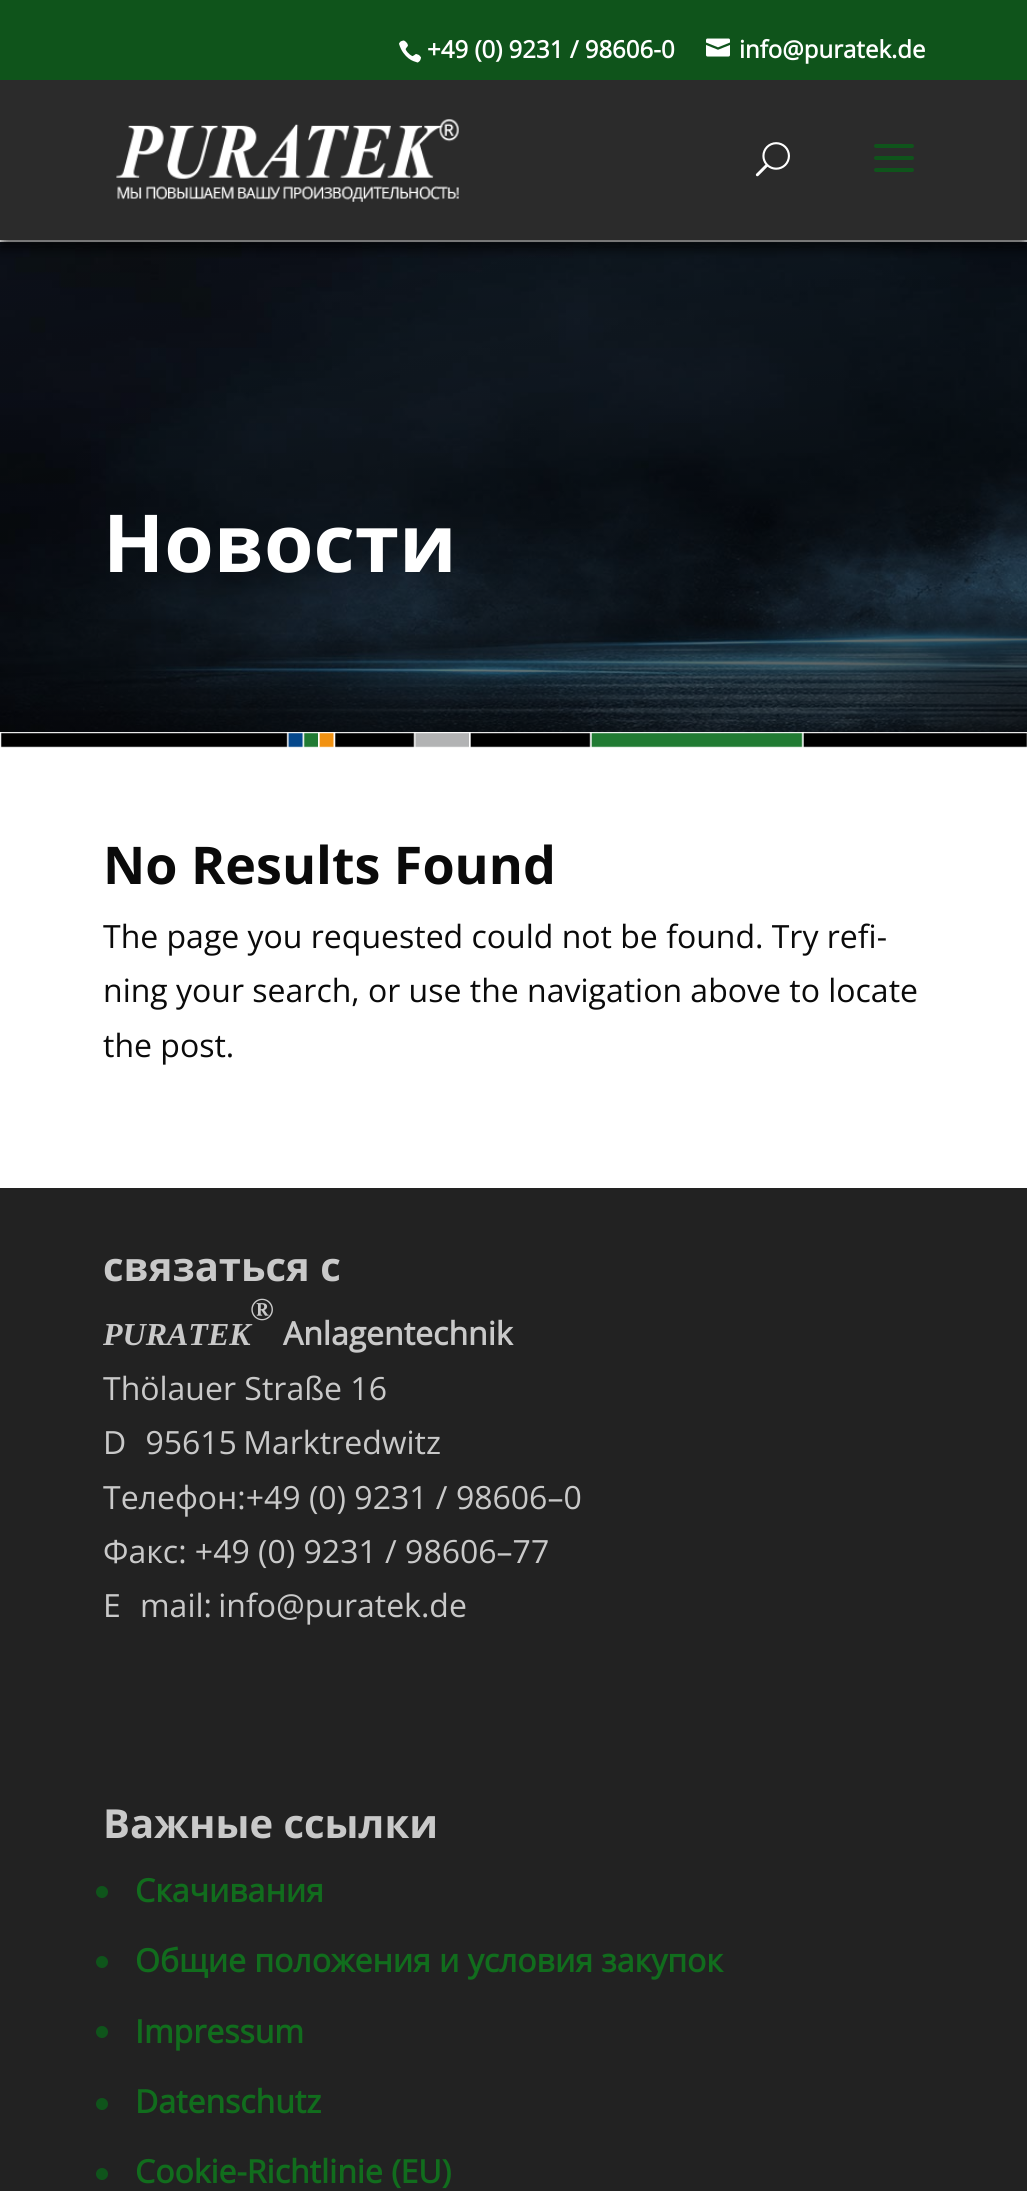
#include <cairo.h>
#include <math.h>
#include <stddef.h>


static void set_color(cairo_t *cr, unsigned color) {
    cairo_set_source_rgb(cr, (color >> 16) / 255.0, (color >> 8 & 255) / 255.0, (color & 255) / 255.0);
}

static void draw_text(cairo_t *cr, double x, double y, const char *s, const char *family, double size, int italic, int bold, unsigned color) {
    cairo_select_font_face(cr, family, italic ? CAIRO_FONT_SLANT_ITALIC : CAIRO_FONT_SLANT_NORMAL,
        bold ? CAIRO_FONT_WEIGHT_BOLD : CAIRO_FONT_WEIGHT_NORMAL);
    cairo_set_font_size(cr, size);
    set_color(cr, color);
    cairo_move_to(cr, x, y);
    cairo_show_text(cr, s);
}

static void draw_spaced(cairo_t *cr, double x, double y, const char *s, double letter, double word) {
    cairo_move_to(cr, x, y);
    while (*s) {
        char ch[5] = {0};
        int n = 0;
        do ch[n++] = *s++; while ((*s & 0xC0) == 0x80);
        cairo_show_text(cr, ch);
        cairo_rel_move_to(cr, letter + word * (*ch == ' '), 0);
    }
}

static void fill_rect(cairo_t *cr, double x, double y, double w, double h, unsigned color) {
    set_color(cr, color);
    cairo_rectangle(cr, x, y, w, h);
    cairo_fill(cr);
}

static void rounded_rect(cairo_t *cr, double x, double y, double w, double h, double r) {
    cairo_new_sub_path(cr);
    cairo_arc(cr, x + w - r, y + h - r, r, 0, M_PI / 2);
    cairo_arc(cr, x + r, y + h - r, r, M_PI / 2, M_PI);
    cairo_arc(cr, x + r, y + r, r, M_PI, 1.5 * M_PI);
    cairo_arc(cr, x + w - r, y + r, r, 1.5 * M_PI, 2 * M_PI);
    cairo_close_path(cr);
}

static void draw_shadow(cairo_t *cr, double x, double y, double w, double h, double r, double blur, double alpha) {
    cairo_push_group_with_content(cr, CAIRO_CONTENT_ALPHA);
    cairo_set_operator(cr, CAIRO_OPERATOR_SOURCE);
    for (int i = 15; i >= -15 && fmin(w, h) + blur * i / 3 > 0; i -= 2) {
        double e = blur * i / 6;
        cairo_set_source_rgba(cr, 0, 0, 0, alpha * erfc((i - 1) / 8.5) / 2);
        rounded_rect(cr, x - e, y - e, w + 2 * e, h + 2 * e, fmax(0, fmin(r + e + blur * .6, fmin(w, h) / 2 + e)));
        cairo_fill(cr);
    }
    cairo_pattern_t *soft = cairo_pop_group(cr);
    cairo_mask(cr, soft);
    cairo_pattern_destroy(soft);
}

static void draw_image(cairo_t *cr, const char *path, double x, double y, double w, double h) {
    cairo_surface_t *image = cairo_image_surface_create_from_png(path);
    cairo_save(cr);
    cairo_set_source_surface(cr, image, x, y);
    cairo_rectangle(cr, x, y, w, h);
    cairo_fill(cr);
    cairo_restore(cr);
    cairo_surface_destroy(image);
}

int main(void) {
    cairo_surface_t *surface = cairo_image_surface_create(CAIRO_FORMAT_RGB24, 1027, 2191);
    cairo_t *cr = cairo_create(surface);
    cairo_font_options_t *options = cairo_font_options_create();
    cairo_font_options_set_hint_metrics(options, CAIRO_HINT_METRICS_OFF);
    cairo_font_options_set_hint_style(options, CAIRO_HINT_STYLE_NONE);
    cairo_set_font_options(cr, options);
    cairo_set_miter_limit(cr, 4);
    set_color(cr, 0xFFFFFF);
    cairo_paint(cr);
    draw_image(cr, "assets/img6.png", 0, 242, 1027, 490);
    set_color(cr, 0x000000);
    draw_shadow(cr, 0, 90, 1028, 160, 0, 5, 0.55);
    fill_rect(cr, 0, 0, 1027, 80, 0x0F541B);
    draw_image(cr, "assets/img1.png", 399, 40, 22, 23);
    draw_text(cr, 427, 58, "+49 (0) 9231 / 98606-0", "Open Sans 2", 24, 0, 1, 0xFFFFFF);
    draw_image(cr, "assets/img2.png", 706, 38, 24, 19);
    draw_text(cr, 739, 58, "info@puratek.de", "Open Sans 2", 24, 0, 1, 0xFFFFFF);
    fill_rect(cr, 0, 80, 1027, 160, 0x2B2B2B);
    draw_image(cr, "assets/img3.png", 116, 119, 343, 83);
    draw_image(cr, "assets/img4.png", 755, 142, 35, 35);
    draw_image(cr, "assets/img5.png", 874, 144, 40, 28);
    draw_text(cr, 103, 572, "Новости", "Open Sans", 80, 0, 1, 0xFFFFFF);
    draw_image(cr, "assets/img7.png", 0, 732, 1027, 16);
    draw_text(cr, 103, 884, "No Results Found", "Open Sans", 52, 0, 1, 0x0A0A0A);
    draw_text(cr, 103, 948, "The page you requested could not be found. Try refi-", "Open Sans", 32, 0, 0, 0x0A0A0A);
    draw_text(cr, 103, 1002, "ning your search, or use the navigation above to locate", "Open Sans", 32, 0, 0, 0x0A0A0A);
    draw_text(cr, 103, 1057, "the post.", "Open Sans", 32, 0, 0, 0x0A0A0A);
    fill_rect(cr, 0, 1188, 1027, 1003, 0x222222);
    draw_text(cr, 103, 1281, "связаться с", "Open Sans", 40, 0, 1, 0xC9C9C9);
    draw_text(cr, 250, 1320, "®", "Liberation Serif", 32, 1, 1, 0xC9C9C9);
    draw_text(cr, 103, 1345, "PURATEK", "Liberation Serif", 32, 1, 1, 0xC9C9C9);
    draw_text(cr, 283, 1345, "Anlagentechnik", "Open Sans 2", 32, 0, 1, 0xC9C9C9);
    draw_text(cr, 103, 1400, "Thölauer Straße 16", "Open Sans", 32, 0, 0, 0xC9C9C9);
    draw_spaced(cr, 103, 1454, "D‑95615 Marktredwitz", 0, -2);
    draw_text(cr, 103, 1509, "Телефон:+49 (0) 9231 / 98606–0", "Open Sans", 32, 0, 0, 0xC9C9C9);
    draw_text(cr, 103, 1563, "Факс: +49 (0) 9231 / 98606–77", "Open Sans", 32, 0, 0, 0xC9C9C9);
    draw_spaced(cr, 103, 1617, "E‑mail: info@puratek.de", 0, -2);
    draw_text(cr, 103, 1838, "Важные ссылки", "Open Sans", 40, 0, 1, 0xC9C9C9);
    set_color(cr, 0x0F541B);
    cairo_new_path(cr);
    cairo_arc(cr, 102, 1892, 6, 0, 2 * M_PI);
    cairo_fill(cr);
    draw_text(cr, 135, 1902, "Скачивания", "Open Sans 2", 32, 0, 1, 0x116D1D);
    set_color(cr, 0x0F541B);
    cairo_new_path(cr);
    cairo_arc(cr, 102, 1962, 6, 0, 2 * M_PI);
    cairo_fill(cr);
    draw_text(cr, 135, 1972, "Общие положения и условия закупок", "Open Sans 2", 32, 0, 1, 0x116D1D);
    set_color(cr, 0x0F541B);
    cairo_new_path(cr);
    cairo_arc(cr, 102, 2032, 6, 0, 2 * M_PI);
    cairo_fill(cr);
    draw_text(cr, 135, 2043, "Impressum", "Open Sans 2", 32, 0, 1, 0x116D1D);
    set_color(cr, 0x0F541B);
    cairo_new_path(cr);
    cairo_arc(cr, 102, 2104, 6, 0, 2 * M_PI);
    cairo_fill(cr);
    draw_text(cr, 135, 2113, "Datenschutz", "Open Sans 2", 32, 0, 1, 0x116D1D);
    set_color(cr, 0x0F541B);
    cairo_new_path(cr);
    cairo_arc(cr, 102, 2174, 6, 0, 2 * M_PI);
    cairo_fill(cr);
    draw_text(cr, 135, 2183, "Cookie-Richtlinie (EU)", "Open Sans 2", 32, 0, 1, 0x116D1D);
    cairo_surface_write_to_png(surface, "output.png");
    cairo_font_options_destroy(options);
    cairo_destroy(cr);
    cairo_surface_destroy(surface);
    return 0;
}
